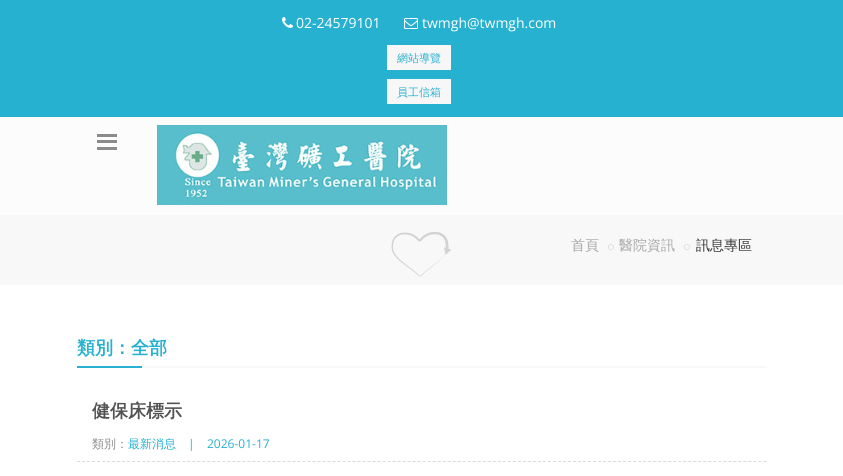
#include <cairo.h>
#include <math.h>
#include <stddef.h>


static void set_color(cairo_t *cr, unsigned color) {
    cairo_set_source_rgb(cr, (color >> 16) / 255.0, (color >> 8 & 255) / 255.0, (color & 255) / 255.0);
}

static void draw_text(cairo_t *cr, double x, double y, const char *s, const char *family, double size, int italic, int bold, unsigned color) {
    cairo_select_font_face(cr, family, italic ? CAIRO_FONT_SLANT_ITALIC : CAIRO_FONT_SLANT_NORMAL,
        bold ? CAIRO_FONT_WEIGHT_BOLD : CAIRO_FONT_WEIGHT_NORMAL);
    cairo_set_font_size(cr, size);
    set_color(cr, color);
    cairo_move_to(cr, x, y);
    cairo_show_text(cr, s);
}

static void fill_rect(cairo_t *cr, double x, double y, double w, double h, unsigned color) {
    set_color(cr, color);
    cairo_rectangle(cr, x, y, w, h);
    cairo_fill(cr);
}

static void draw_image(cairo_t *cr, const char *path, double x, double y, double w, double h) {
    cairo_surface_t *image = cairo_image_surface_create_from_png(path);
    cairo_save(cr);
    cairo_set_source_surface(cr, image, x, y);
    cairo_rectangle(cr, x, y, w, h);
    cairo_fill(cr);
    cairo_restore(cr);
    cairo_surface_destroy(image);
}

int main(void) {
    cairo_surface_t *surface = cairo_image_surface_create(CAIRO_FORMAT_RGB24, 843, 476);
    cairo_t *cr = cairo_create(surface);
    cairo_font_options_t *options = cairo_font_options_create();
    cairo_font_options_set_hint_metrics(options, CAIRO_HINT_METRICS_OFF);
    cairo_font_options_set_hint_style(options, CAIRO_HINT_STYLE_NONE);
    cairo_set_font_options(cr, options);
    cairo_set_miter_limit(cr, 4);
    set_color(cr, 0x26B1D0);
    cairo_paint(cr);
    draw_image(cr, "assets/img1.png", 282, 17, 11, 11);
    draw_text(cr, 296, 28, "02-24579101", "Open Sans", 14, 0, 0, 0xFFFFFF);
    draw_image(cr, "assets/img2.png", 404, 18, 14, 11);
    draw_text(cr, 422, 28, "twmgh@twmgh.com", "Open Sans", 14, 0, 0, 0xFFFFFF);
    fill_rect(cr, 387, 45, 64, 25, 0xF7F7F7);
    draw_text(cr, 397, 62, "網站導覽", "WenQuanYi Zen Hei Medium", 11, 0, 0, 0x26B1D0);
    fill_rect(cr, 387, 79, 64, 25, 0xF7F7F7);
    draw_text(cr, 397, 96, "員工信箱", "WenQuanYi Zen Hei Medium", 11, 0, 0, 0x26B1D0);
    fill_rect(cr, 0, 117, 843, 98, 0xFCFCFC);
    fill_rect(cr, 97, 134, 20, 3, 0x8B8B8B);
    fill_rect(cr, 97, 140, 20, 3, 0x8B8B8B);
    fill_rect(cr, 97, 147, 20, 3, 0x8B8B8B);
    draw_image(cr, "assets/img3.png", 157, 125, 290, 80);
    fill_rect(cr, 0, 215, 843, 70, 0xF8F8F8);
    draw_image(cr, "assets/img4.png", 391, 231, 60, 46);
    draw_text(cr, 571, 250, "首頁", "WenQuanYi Zen Hei Medium", 14, 0, 0, 0xA8A8A8);
    draw_image(cr, "assets/img5.png", 608, 244, 6, 6);
    draw_text(cr, 619, 250, "醫院資訊", "WenQuanYi Zen Hei Medium", 14, 0, 0, 0xA8A8A8);
    draw_image(cr, "assets/img5.png", 684, 244, 6, 6);
    draw_text(cr, 696, 250, "訊息專區", "WenQuanYi Zen Hei Medium", 14, 0, 0, 0x353535);
    fill_rect(cr, 0, 285, 843, 191, 0xFFFFFF);
    fill_rect(cr, 142, 366, 625, 2, 0xF9F9F9);
    draw_text(cr, 77, 354, "類別：全部", "WenQuanYi Zen Hei", 18, 0, 1, 0x26B1D0);
    fill_rect(cr, 77, 366, 65, 2, 0x26B1D0);
    cairo_new_path(cr);
    cairo_move_to(cr, 77, 461.5);
    cairo_line_to(cr, 767, 461.5);
    set_color(cr, 0xDADADA);
    cairo_set_line_width(cr, 1);
    cairo_set_dash(cr, (double[]){3, 2.01}, 2, 0);
    cairo_stroke(cr);
    draw_text(cr, 92, 417, "健保床標示", "WenQuanYi Zen Hei", 18, 0, 1, 0x525252);
    draw_text(cr, 92, 448, "類別：", "WenQuanYi Zen Hei Medium", 12, 0, 0, 0x8B8B8B);
    draw_text(cr, 128, 448, "最新消息", "WenQuanYi Zen Hei Medium", 12, 0, 0, 0x26B1D0);
    draw_text(cr, 188, 448, "|", "Open Sans", 12, 0, 0, 0x26B1D0);
    draw_text(cr, 207, 448, "2026-01-17", "Open Sans", 12, 0, 0, 0x26B1D0);
    cairo_surface_write_to_png(surface, "output.png");
    cairo_font_options_destroy(options);
    cairo_destroy(cr);
    cairo_surface_destroy(surface);
    return 0;
}
